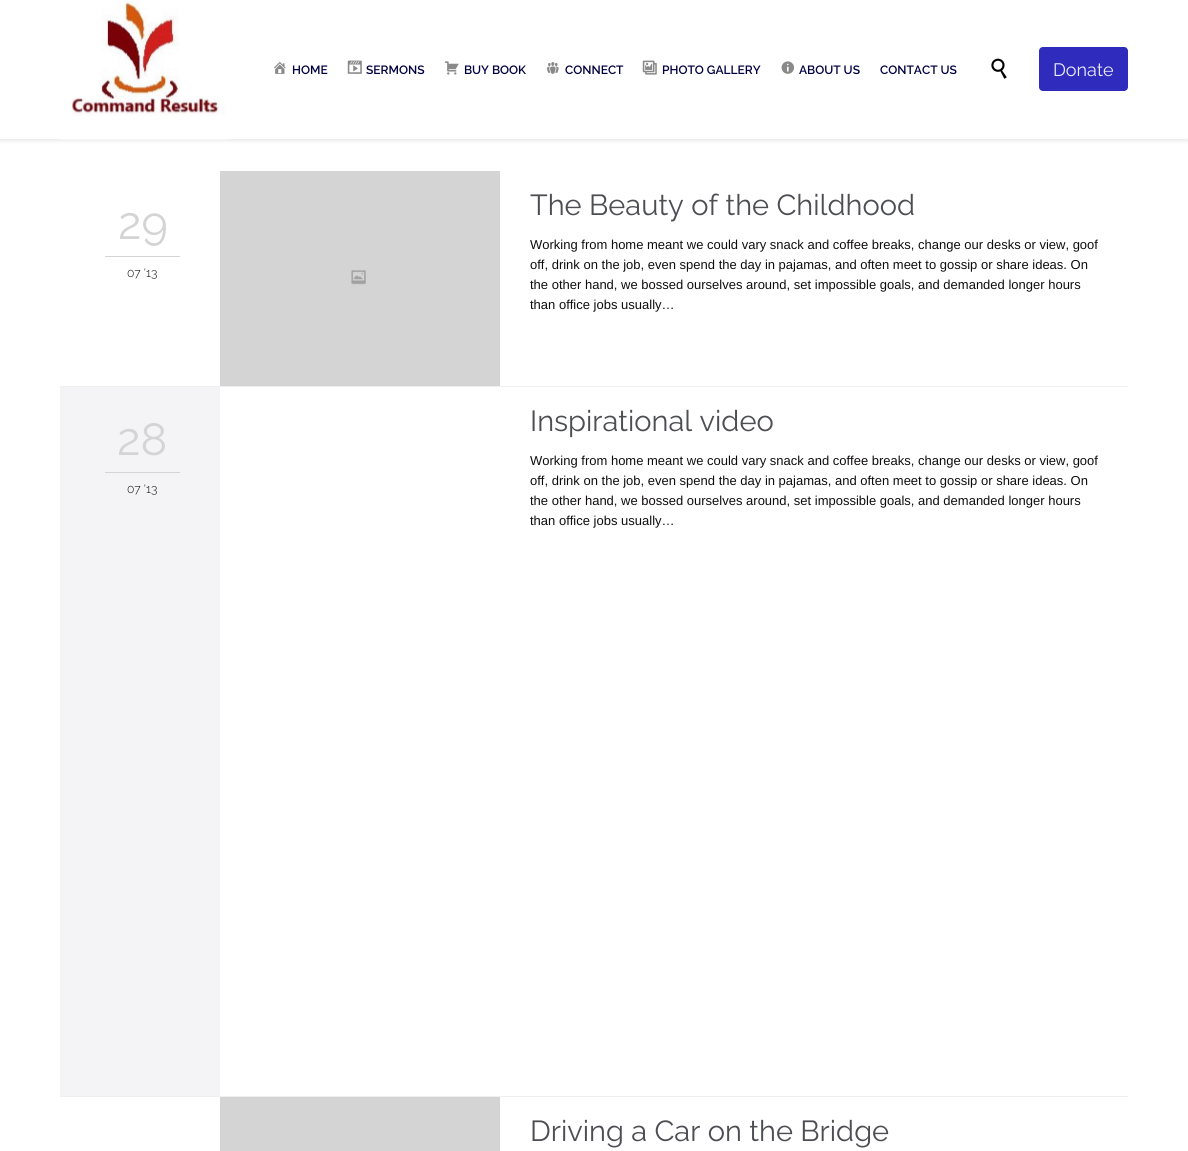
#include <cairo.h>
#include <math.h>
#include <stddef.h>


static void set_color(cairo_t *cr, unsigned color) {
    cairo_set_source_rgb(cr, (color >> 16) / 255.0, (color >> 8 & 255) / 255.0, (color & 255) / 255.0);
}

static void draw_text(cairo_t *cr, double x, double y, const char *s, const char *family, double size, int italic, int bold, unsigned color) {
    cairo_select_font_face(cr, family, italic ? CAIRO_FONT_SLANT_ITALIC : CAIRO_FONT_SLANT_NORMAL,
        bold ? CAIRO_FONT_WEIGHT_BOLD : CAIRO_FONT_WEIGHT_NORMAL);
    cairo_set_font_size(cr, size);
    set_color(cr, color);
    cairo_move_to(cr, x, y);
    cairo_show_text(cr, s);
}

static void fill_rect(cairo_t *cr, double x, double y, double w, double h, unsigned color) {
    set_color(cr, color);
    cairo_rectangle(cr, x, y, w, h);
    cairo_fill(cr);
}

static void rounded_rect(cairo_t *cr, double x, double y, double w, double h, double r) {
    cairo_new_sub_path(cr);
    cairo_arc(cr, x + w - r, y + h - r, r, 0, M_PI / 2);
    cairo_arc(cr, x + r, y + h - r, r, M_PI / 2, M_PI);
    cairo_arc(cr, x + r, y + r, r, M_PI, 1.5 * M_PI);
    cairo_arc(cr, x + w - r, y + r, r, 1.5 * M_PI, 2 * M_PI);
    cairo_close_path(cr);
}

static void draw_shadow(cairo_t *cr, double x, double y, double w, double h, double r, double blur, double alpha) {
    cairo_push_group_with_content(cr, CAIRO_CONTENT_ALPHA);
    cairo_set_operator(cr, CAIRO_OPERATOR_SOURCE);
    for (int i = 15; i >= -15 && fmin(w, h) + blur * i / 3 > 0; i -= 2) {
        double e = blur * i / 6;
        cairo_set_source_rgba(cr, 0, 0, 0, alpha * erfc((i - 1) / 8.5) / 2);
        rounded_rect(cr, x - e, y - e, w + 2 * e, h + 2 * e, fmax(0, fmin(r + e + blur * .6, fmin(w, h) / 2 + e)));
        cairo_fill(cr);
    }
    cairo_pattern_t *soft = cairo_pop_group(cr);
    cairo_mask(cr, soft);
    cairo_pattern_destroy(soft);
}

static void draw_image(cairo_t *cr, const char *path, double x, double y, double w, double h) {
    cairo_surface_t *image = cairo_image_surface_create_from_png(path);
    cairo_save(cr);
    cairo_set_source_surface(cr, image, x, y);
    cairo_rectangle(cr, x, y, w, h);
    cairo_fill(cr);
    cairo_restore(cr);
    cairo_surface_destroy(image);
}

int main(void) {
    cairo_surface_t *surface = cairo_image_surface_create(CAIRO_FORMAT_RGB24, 1188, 1151);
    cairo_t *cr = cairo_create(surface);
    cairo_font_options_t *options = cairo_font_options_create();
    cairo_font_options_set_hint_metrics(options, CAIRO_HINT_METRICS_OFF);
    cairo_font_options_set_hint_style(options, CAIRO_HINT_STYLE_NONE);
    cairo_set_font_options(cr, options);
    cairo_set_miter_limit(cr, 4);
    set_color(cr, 0xFFFFFF);
    cairo_paint(cr);
    set_color(cr, 0x000000);
    draw_shadow(cr, 0, -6, 1188, 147, 0, 2, 0.09);
    fill_rect(cr, 0, 0, 1188, 139, 0xFFFFFF);
    draw_image(cr, "assets/img1.png", 60, 0, 167, 140);
    draw_image(cr, "assets/img2.png", 274, 61, 12, 13);
    draw_text(cr, 292, 74, "HOME", "Raleway SemiBold", 12, 0, 0, 0x000040);
    draw_image(cr, "assets/img3.png", 347, 60, 15, 14);
    draw_text(cr, 366, 74, "SERMONS", "Raleway SemiBold", 12, 0, 0, 0x000040);
    draw_image(cr, "assets/img4.png", 444, 61, 15, 14);
    draw_text(cr, 464, 74, "BUY BOOK", "Raleway SemiBold", 12, 0, 0, 0x000040);
    draw_image(cr, "assets/img5.png", 547, 62, 12, 12);
    draw_text(cr, 565, 74, "CONNECT", "Raleway SemiBold", 12, 0, 0, 0x000040);
    draw_image(cr, "assets/img6.png", 642, 60, 15, 15);
    draw_text(cr, 662, 74, "PHOTO GALLERY", "Raleway SemiBold", 12, 0, 0, 0x000040);
    draw_image(cr, "assets/img7.png", 781, 61, 13, 13);
    draw_text(cr, 799, 74, "ABOUT US", "Raleway SemiBold", 12, 0, 0, 0x000040);
    draw_text(cr, 880, 74, "CONTACT US", "Raleway SemiBold", 12, 0, 0, 0x000040);
    draw_image(cr, "assets/img8.png", 991, 58, 16, 21);
    set_color(cr, 0x2E2BBD);
    rounded_rect(cr, 1039, 47, 89, 44, 4);
    cairo_fill(cr);
    draw_text(cr, 1053, 76, "Donate", "Raleway", 18, 0, 0, 0xEDECFB);
    fill_rect(cr, 60, 386, 1068, 1, 0xEFEFEF);
    fill_rect(cr, 105, 256, 75, 1, 0xD4D4D4);
    draw_text(cr, 118, 239, "29", "Raleway", 45, 0, 0, 0xD4D4D4);
    draw_text(cr, 127, 277, "07 '13", "Raleway Light", 12, 0, 0, 0x0F0D0D);
    draw_image(cr, "assets/img9.png", 220, 171, 280, 215);
    draw_text(cr, 530, 215, "The Beauty of the Childhood", "Raleway", 29, 0, 0, 0x4D4E53);
    draw_text(cr, 530, 249, "Working from home meant we could vary snack and coffee breaks, change our desks or view, goof", "Liberation Sans", 13, 0, 0, 0x0F0D0D);
    draw_text(cr, 530, 269, "off, drink on the job, even spend the day in pajamas, and often meet to gossip or share ideas. On", "Liberation Sans", 13, 0, 0, 0x0F0D0D);
    draw_text(cr, 530, 289, "the other hand, we bossed ourselves around, set impossible goals, and demanded longer hours", "Liberation Sans", 13, 0, 0, 0x0F0D0D);
    draw_text(cr, 530, 309, "than office jobs usually…", "Liberation Sans", 13, 0, 0, 0x0F0D0D);
    fill_rect(cr, 60, 1096, 1068, 1, 0xEFEFEF);
    fill_rect(cr, 60, 387, 160, 709, 0xF4F3F6);
    fill_rect(cr, 105, 472, 75, 1, 0xD4D4D4);
    draw_text(cr, 117, 455, "28", "Raleway", 45, 0, 0, 0xD4D4D4);
    draw_text(cr, 127, 493, "07 '13", "Raleway Light", 12, 0, 0, 0x0F0D0D);
    draw_text(cr, 530, 431, "Inspirational video", "Raleway", 29, 0, 0, 0x4D4E53);
    draw_text(cr, 530, 465, "Working from home meant we could vary snack and coffee breaks, change our desks or view, goof", "Liberation Sans", 13, 0, 0, 0x0F0D0D);
    draw_text(cr, 530, 485, "off, drink on the job, even spend the day in pajamas, and often meet to gossip or share ideas. On", "Liberation Sans", 13, 0, 0, 0x0F0D0D);
    draw_text(cr, 530, 505, "the other hand, we bossed ourselves around, set impossible goals, and demanded longer hours", "Liberation Sans", 13, 0, 0, 0x0F0D0D);
    draw_text(cr, 530, 525, "than office jobs usually…", "Liberation Sans", 13, 0, 0, 0x0F0D0D);
    fill_rect(cr, 220, 1097, 280, 54, 0xD4D4D4);
    draw_text(cr, 530, 1141, "Driving a Car on the Bridge", "Raleway", 29, 0, 0, 0x4D4E53);
    cairo_surface_write_to_png(surface, "output.png");
    cairo_font_options_destroy(options);
    cairo_destroy(cr);
    cairo_surface_destroy(surface);
    return 0;
}
